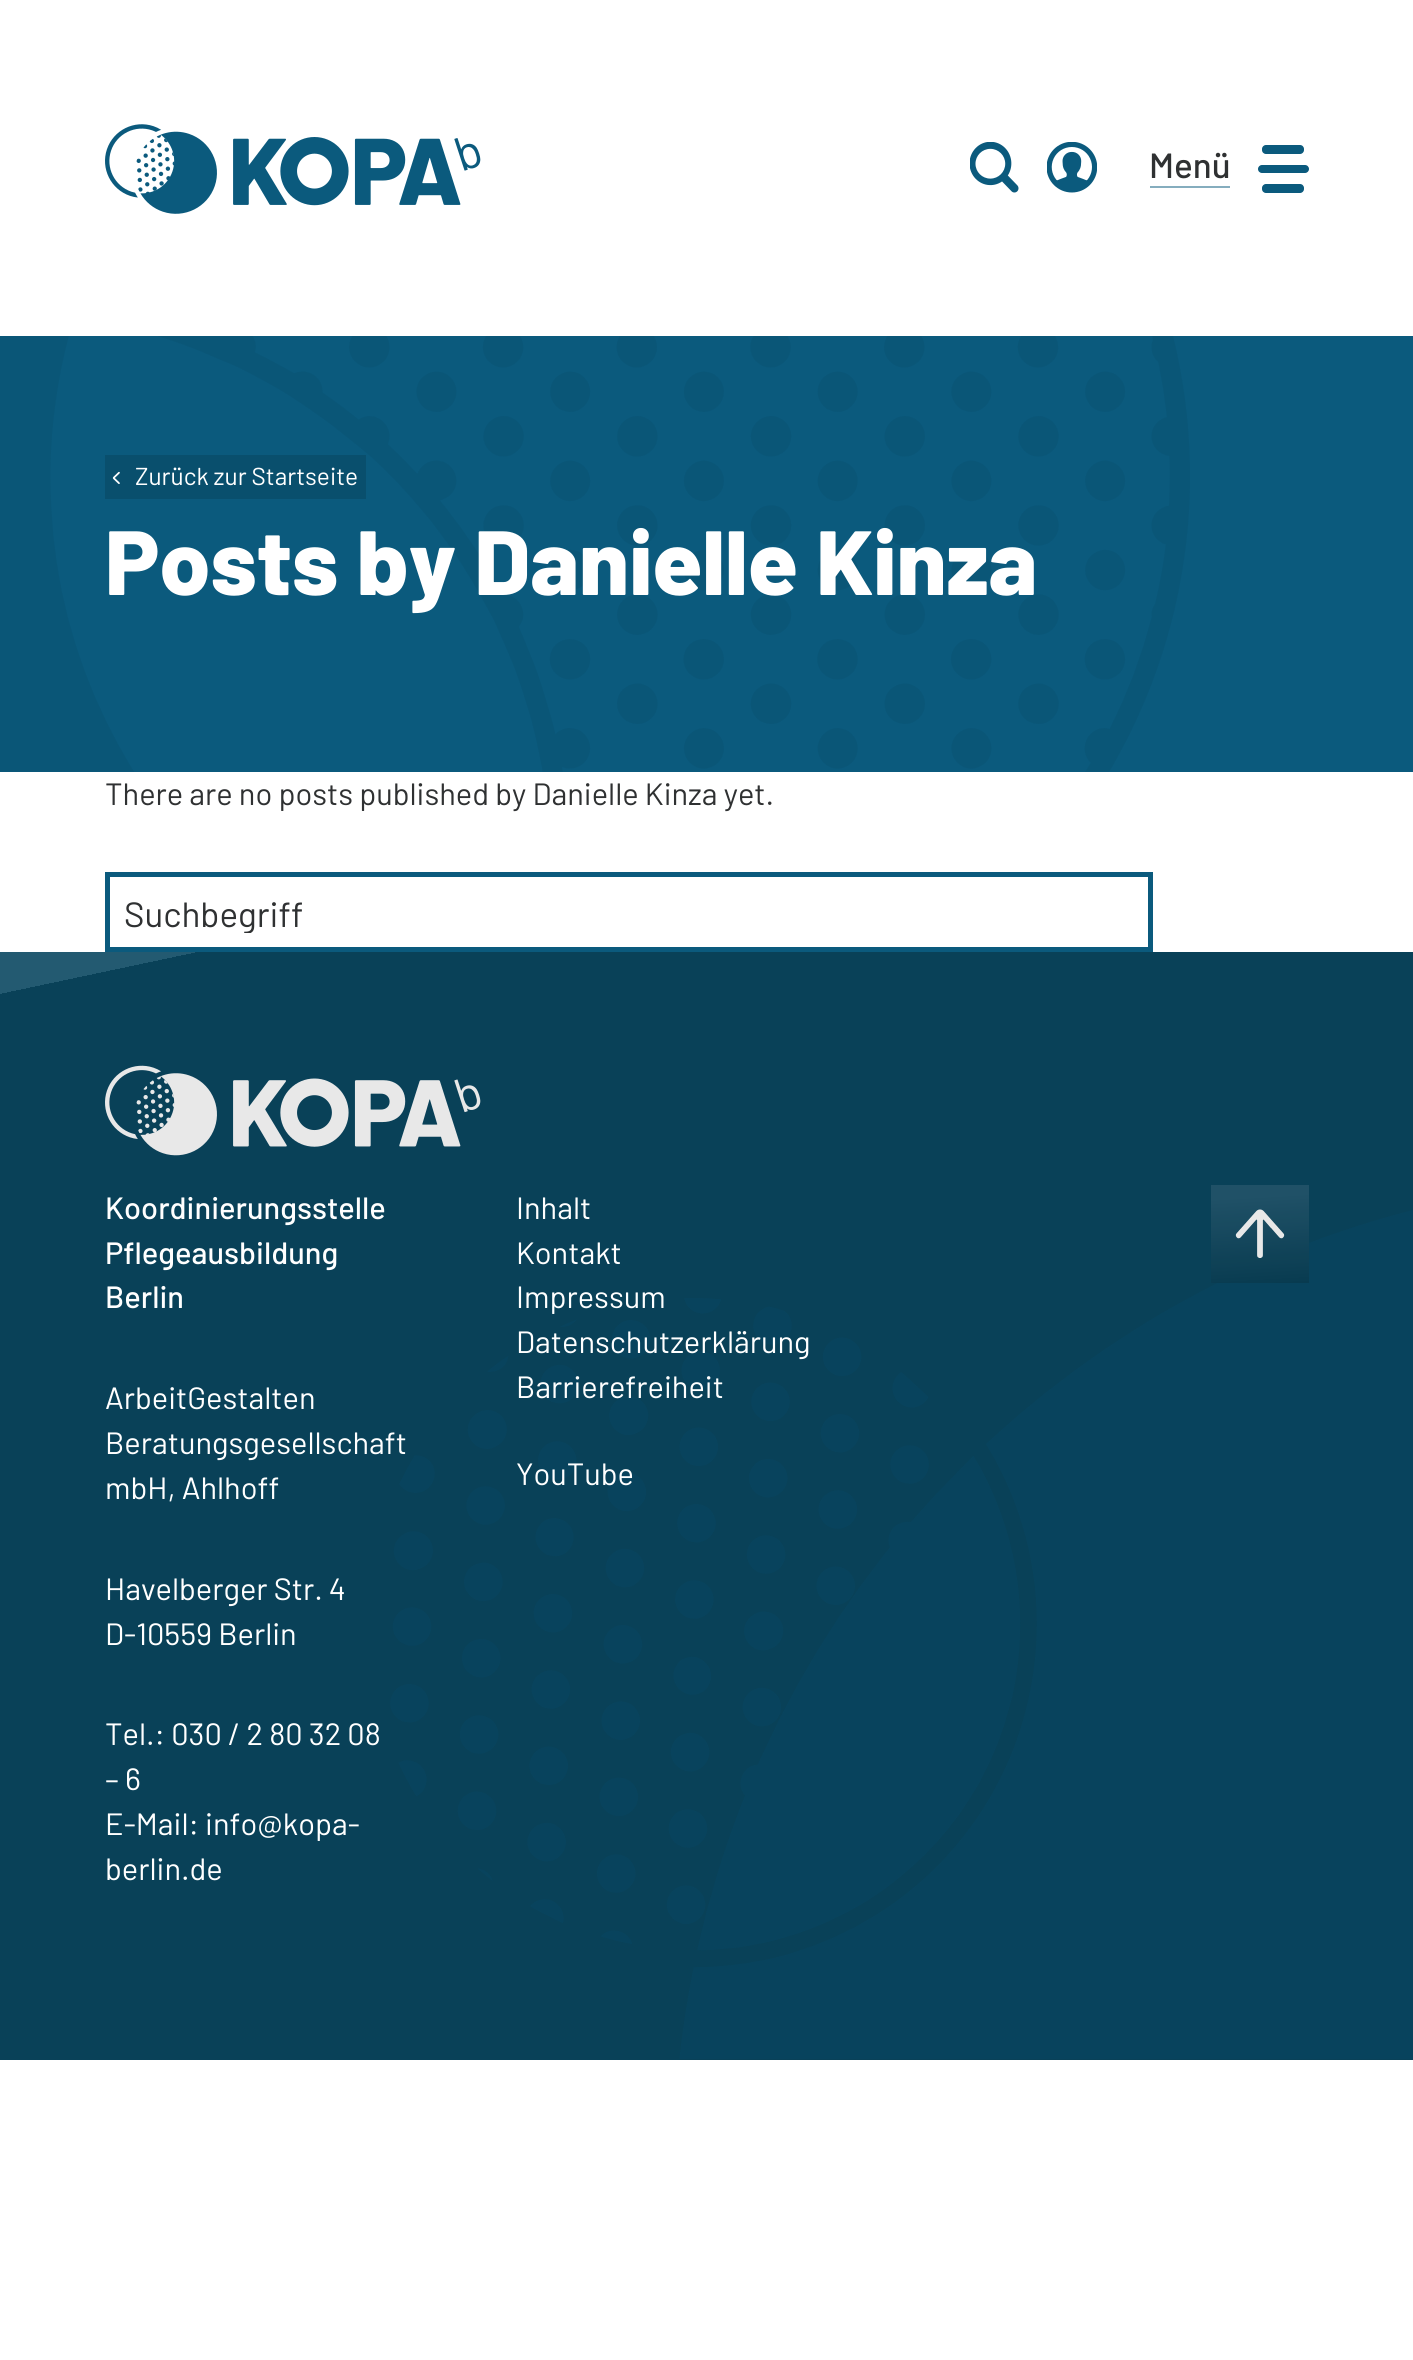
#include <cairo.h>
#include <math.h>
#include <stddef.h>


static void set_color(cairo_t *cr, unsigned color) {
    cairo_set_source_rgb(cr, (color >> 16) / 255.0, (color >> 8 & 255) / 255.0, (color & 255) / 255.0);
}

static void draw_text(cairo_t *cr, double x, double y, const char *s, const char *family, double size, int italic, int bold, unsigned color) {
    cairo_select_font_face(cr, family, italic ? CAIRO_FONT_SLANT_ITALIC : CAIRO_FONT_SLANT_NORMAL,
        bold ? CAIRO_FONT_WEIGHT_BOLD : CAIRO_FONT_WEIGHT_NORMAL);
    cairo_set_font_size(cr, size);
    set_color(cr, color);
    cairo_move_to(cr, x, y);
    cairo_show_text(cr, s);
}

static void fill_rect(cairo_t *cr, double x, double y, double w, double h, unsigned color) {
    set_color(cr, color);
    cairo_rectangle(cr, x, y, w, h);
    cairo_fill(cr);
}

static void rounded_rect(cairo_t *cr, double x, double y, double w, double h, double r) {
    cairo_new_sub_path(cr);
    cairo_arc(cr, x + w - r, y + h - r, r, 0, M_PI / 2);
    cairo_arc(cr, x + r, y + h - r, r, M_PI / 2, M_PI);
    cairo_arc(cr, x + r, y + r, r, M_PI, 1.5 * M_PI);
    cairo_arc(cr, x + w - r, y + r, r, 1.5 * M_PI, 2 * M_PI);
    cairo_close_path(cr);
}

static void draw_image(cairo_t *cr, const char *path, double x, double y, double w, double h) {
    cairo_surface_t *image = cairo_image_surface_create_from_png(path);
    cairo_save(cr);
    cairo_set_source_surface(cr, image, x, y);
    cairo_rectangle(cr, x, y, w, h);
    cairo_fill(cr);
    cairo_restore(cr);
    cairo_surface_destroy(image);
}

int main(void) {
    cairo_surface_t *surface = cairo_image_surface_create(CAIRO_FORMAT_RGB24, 1413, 2360);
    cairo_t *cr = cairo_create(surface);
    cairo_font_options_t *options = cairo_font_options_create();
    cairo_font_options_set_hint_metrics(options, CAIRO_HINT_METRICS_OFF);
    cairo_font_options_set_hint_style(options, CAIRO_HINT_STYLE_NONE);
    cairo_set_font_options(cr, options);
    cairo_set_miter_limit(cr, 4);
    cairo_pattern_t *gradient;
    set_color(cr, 0xFFFFFF);
    cairo_paint(cr);
    draw_image(cr, "assets/img1.png", 105, 124, 376, 90);
    draw_image(cr, "assets/img2.png", 970, 142, 49, 51);
    draw_image(cr, "assets/img3.png", 1047, 142, 50, 51);
    draw_text(cr, 1149, 178, "Menü", "Barlow Medium", 35, 0, 0, 0x2F3132);
    fill_rect(cr, 1150, 186, 80, 2, 0x85ADBE);
    set_color(cr, 0x0B5A7D);
    rounded_rect(cr, 1262, 184, 42, 9, 4);
    cairo_fill(cr);
    rounded_rect(cr, 1258, 165, 51, 8, 4);
    cairo_fill(cr);
    rounded_rect(cr, 1262, 145, 42, 9, 4);
    cairo_fill(cr);
    fill_rect(cr, 0, 336, 1413, 436, 0x0B5A7D);
    draw_image(cr, "assets/img4.png", 0, 336, 1190, 436);
    fill_rect(cr, 105, 455, 261, 44, 0x094F6D);
    draw_image(cr, "assets/img5.png", 112, 471, 8, 13);
    draw_text(cr, 135, 485, "Zurück zur Startseite", "Barlow", 24.5, 0, 0, 0xFFFFFF);
    draw_text(cr, 105, 595, "Posts by Danielle Kinza", "Barlow ExtraBold", 91, 0, 0, 0xFFFFFF);
    draw_text(cr, 105, 805, "There are no posts published by Danielle Kinza yet.", "Barlow", 30.8, 0, 0, 0x2F3132);
    cairo_rectangle(cr, 107.5, 874.5, 1043, 75);
    set_color(cr, 0x0B5A7D);
    cairo_set_line_width(cr, 5);
    cairo_stroke(cr);
    cairo_save(cr);
    cairo_rectangle(cr, 124, 891, 1010, 42);
    cairo_clip(cr);
    draw_text(cr, 124, 927, "Suchbegriff", "Barlow", 35, 0, 0, 0x2F3132);
    cairo_restore(cr);
    fill_rect(cr, 0, 952, 1413, 1108, 0x0A4761);
    draw_image(cr, "assets/img6.png", 105, 1065, 376, 91);
    draw_image(cr, "assets/img8.png", 390, 1210, 1023, 849);
    gradient = cairo_pattern_create_linear(1263, 1285, 1257, 1182);
    cairo_pattern_add_color_stop_rgba(gradient, 0, 0.035, 0.255, 0.345, 1);
    cairo_pattern_add_color_stop_rgba(gradient, 0.86, 0.137, 0.349, 0.443, 1);
    cairo_set_source(cr, gradient);
    cairo_pattern_destroy(gradient);
    cairo_rectangle(cr, 1211, 1185, 98, 98);
    cairo_fill(cr);
    draw_image(cr, "assets/img7.png", 1235, 1209, 50, 49);
    gradient = cairo_pattern_create_linear(850, 2180, 564, 832);
    cairo_pattern_add_color_stop_rgba(gradient, 0.97, 0, 0, 0, 0.09);
    cairo_pattern_add_color_stop_rgba(gradient, 0.97, 1, 1, 1, 0.1);
    cairo_set_source(cr, gradient);
    cairo_pattern_destroy(gradient);
    cairo_rectangle(cr, 0, 952, 1413, 1108);
    cairo_fill(cr);
    draw_text(cr, 105, 1219, "Koordinierungsstelle", "Barlow Medium", 30.8, 0, 0, 0xFFFFFF);
    draw_text(cr, 105, 1264, "Pflegeausbildung", "Barlow Medium", 30.8, 0, 0, 0xFFFFFF);
    draw_text(cr, 105, 1308, "Berlin", "Barlow Medium", 30.8, 0, 0, 0xFFFFFF);
    draw_text(cr, 105, 1409, "ArbeitGestalten", "Barlow", 30.8, 0, 0, 0xFFFFFF);
    draw_text(cr, 105, 1454, "Beratungsgesellschaft", "Barlow", 30.8, 0, 0, 0xFFFFFF);
    draw_text(cr, 105, 1499, "mbH, Ahlhoff", "Barlow", 30.8, 0, 0, 0xFFFFFF);
    draw_text(cr, 105, 1600, "Havelberger Str. 4", "Barlow", 30.8, 0, 0, 0xFFFFFF);
    draw_text(cr, 105, 1645, "D-10559 Berlin", "Barlow", 30.8, 0, 0, 0xFFFFFF);
    draw_text(cr, 105, 1745, "Tel.: 030 / 2 80 32 08", "Barlow", 30.8, 0, 0, 0xFFFFFF);
    draw_text(cr, 105, 1790, "– 6", "Barlow", 30.8, 0, 0, 0xFFFFFF);
    draw_text(cr, 105, 1835, "E-Mail: info@kopa-", "Barlow", 30.8, 0, 0, 0xFFFFFF);
    draw_text(cr, 105, 1880, "berlin.de", "Barlow", 30.8, 0, 0, 0xFFFFFF);
    draw_text(cr, 516, 1219, "Inhalt", "Barlow", 30.8, 0, 0, 0xFFFFFF);
    draw_text(cr, 516, 1264, "Kontakt", "Barlow", 30.8, 0, 0, 0xFFFFFF);
    draw_text(cr, 516, 1308, "Impressum", "Barlow", 30.8, 0, 0, 0xFFFFFF);
    draw_text(cr, 516, 1353, "Datenschutzerklärung", "Barlow", 30.8, 0, 0, 0xFFFFFF);
    draw_text(cr, 516, 1398, "Barrierefreiheit", "Barlow", 30.8, 0, 0, 0xFFFFFF);
    draw_text(cr, 516, 1485, "YouTube", "Barlow", 30.8, 0, 0, 0xFFFFFF);
    cairo_surface_write_to_png(surface, "output.png");
    cairo_font_options_destroy(options);
    cairo_destroy(cr);
    cairo_surface_destroy(surface);
    return 0;
}
